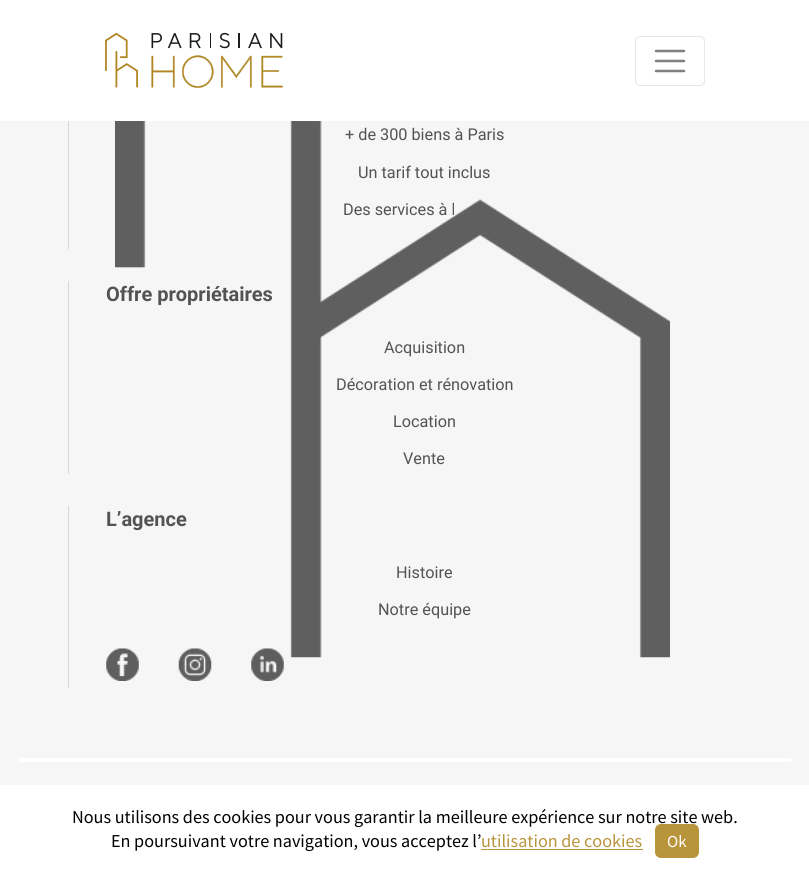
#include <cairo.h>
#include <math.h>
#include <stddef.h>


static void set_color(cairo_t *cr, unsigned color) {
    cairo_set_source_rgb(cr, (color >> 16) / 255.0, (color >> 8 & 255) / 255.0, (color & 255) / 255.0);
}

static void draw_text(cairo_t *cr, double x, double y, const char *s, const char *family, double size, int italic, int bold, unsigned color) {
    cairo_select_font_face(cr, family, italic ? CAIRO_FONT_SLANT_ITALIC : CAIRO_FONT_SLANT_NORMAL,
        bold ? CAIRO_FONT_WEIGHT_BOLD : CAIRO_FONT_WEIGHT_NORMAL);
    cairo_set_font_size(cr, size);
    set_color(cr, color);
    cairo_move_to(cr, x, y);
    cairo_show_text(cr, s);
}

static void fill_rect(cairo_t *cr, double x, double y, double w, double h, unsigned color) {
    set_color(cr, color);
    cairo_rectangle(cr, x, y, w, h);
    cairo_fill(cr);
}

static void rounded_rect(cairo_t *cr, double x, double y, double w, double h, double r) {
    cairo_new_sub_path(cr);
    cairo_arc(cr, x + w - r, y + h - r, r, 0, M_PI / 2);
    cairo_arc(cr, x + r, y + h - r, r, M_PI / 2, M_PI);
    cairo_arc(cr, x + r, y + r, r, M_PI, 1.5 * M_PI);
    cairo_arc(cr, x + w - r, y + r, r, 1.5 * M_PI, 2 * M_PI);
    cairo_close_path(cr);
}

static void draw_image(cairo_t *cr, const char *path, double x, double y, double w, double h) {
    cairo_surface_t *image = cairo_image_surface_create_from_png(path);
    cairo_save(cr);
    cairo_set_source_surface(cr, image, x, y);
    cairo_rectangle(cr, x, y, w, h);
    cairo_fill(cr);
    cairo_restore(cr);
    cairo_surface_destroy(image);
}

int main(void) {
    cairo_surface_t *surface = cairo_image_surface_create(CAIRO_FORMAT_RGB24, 809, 871);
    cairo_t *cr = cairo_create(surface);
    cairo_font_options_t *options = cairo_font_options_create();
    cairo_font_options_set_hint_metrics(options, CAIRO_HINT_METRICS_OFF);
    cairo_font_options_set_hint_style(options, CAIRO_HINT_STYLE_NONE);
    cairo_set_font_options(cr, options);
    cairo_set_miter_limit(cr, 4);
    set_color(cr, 0xF6F6F6);
    cairo_paint(cr);
    fill_rect(cr, 0, 0, 809, 121, 0xFFFFFF);
    draw_image(cr, "assets/img1.png", 105, 32, 178, 56);
    rounded_rect(cr, 635.5, 36.5, 69, 49, 4.5);
    set_color(cr, 0xE6E6E6);
    cairo_set_line_width(cr, 1);
    cairo_stroke(cr);
    cairo_new_path(cr);
    cairo_move_to(cr, 656, 51);
    cairo_line_to(cr, 684, 51);
    cairo_move_to(cr, 656, 61);
    cairo_line_to(cr, 684, 61);
    cairo_move_to(cr, 656, 71);
    cairo_line_to(cr, 684, 71);
    set_color(cr, 0x808080);
    cairo_set_line_width(cr, 2.5);
    cairo_set_line_cap(cr, CAIRO_LINE_CAP_ROUND);
    cairo_stroke(cr);
    draw_image(cr, "assets/img2.png", 115, 121, 555, 537);
    fill_rect(cr, 68, 121, 1, 128, 0xD7D7D7);
    draw_text(cr, 345, 140, "+ de 300 biens à Paris", "Roboto", 16.25, 0, 0, 0x535353);
    draw_text(cr, 358, 178, "Un tarif tout inclus", "Roboto", 16.25, 0, 0, 0x535353);
    draw_text(cr, 343, 215, "Des services à l", "Roboto", 16.25, 0, 0, 0x535353);
    fill_rect(cr, 68, 281, 1, 193, 0xD7D7D7);
    draw_text(cr, 106, 301, "Offre propriétaires", "Roboto", 20, 0, 1, 0x535353);
    draw_text(cr, 384, 353, "Acquisition", "Roboto", 16.25, 0, 0, 0x535353);
    draw_text(cr, 336, 390, "Décoration et rénovation", "Roboto", 16.25, 0, 0, 0x535353);
    draw_text(cr, 393, 427, "Location", "Roboto", 16.25, 0, 0, 0x535353);
    draw_text(cr, 403, 464, "Vente", "Roboto", 16.25, 0, 0, 0x535353);
    fill_rect(cr, 68, 506, 1, 182, 0xD7D7D7);
    draw_text(cr, 106, 526, "L’agence", "Roboto", 20, 0, 1, 0x535353);
    draw_text(cr, 396, 578, "Histoire", "Roboto", 16.25, 0, 0, 0x535353);
    draw_text(cr, 378, 615, "Notre équipe", "Roboto", 16.25, 0, 0, 0x535353);
    draw_image(cr, "assets/img3.png", 106, 648, 33, 33);
    draw_image(cr, "assets/img4.png", 178, 648, 34, 33);
    draw_image(cr, "assets/img5.png", 251, 648, 33, 33);
    fill_rect(cr, 19, 758, 772, 4, 0xFFFFFF);
    fill_rect(cr, 0, 785, 809, 86, 0xFFFFFF);
    draw_text(cr, 72, 823, "Nous utilisons des cookies pour vous garantir la meilleure expérience sur notre site web.", "Noto Sans JP", 16.25, 0, 0, 0x000000);
    draw_text(cr, 111, 847, "En poursuivant votre navigation, vous acceptez l’", "Noto Sans JP", 16.25, 0, 0, 0x000000);
    fill_rect(cr, 481, 849, 162, 1, 0xB8943B);
    draw_text(cr, 481, 847, "utilisation de cookies", "Noto Sans JP", 16.25, 0, 0, 0xB8943B);
    rounded_rect(cr, 655, 824, 44, 34, 6);
    cairo_fill(cr);
    draw_text(cr, 667, 847, "Ok", "Noto Sans JP", 15, 0, 0, 0xFFFFFF);
    cairo_surface_write_to_png(surface, "output.png");
    cairo_font_options_destroy(options);
    cairo_destroy(cr);
    cairo_surface_destroy(surface);
    return 0;
}
